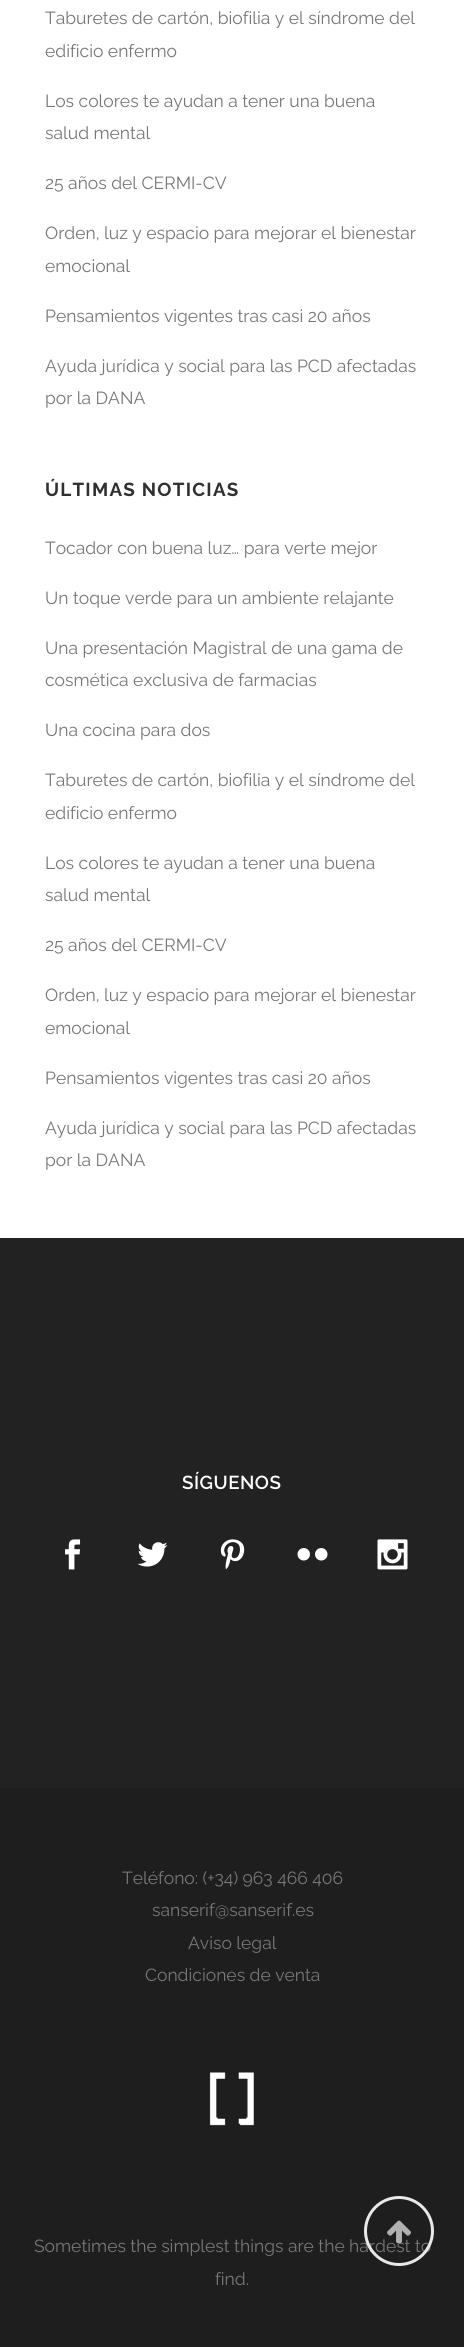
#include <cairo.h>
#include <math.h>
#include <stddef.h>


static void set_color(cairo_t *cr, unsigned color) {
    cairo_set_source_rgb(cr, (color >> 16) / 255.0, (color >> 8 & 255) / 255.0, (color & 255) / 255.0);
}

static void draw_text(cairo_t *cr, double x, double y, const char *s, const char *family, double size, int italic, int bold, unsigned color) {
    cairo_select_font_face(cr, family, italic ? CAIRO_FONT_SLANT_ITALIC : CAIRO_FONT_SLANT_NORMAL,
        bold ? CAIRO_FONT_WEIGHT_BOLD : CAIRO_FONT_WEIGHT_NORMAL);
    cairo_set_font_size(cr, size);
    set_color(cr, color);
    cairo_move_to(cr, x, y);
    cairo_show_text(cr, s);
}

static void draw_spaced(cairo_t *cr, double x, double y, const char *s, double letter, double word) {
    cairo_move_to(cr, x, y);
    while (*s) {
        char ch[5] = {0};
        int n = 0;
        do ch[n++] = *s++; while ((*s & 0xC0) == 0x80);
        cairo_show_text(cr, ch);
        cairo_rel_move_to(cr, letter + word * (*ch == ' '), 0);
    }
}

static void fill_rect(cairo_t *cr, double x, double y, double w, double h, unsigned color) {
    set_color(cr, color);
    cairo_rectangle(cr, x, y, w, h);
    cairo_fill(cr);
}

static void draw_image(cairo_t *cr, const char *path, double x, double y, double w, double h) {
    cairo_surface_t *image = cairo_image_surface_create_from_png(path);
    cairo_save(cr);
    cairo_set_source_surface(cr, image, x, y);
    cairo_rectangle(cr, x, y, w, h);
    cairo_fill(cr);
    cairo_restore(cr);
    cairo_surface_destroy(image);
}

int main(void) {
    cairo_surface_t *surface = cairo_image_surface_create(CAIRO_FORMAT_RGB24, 464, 2347);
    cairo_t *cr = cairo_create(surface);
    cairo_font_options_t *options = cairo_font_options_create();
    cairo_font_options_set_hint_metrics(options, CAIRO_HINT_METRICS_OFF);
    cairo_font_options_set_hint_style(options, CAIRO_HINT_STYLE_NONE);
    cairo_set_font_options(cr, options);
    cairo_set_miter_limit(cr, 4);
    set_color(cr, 0xFFFFFF);
    cairo_paint(cr);
    draw_text(cr, 45, 24, "Taburetes de cartón, biofilia y el síndrome del", "Raleway", 17.5, 0, 0, 0x777777);
    draw_text(cr, 45, 57, "edificio enfermo", "Raleway", 17.5, 0, 0, 0x777777);
    draw_text(cr, 45, 107, "Los colores te ayudan a tener una buena", "Raleway", 17.5, 0, 0, 0x777777);
    draw_text(cr, 45, 139, "salud mental", "Raleway", 17.5, 0, 0, 0x777777);
    draw_text(cr, 45, 189, "25 años del CERMI-CV", "Raleway", 17.5, 0, 0, 0x777777);
    draw_text(cr, 45, 239, "Orden, luz y espacio para mejorar el bienestar", "Raleway", 17.5, 0, 0, 0x777777);
    draw_text(cr, 45, 272, "emocional", "Raleway", 17.5, 0, 0, 0x777777);
    draw_text(cr, 45, 322, "Pensamientos vigentes tras casi 20 años", "Raleway", 17.5, 0, 0, 0x777777);
    draw_text(cr, 45, 372, "Ayuda jurídica y social para las PCD afectadas", "Raleway", 17.5, 0, 0, 0x777777);
    draw_text(cr, 45, 404, "por la DANA", "Raleway", 17.5, 0, 0, 0x777777);
    cairo_select_font_face(cr, "Raleway", CAIRO_FONT_SLANT_NORMAL, CAIRO_FONT_WEIGHT_BOLD);
    cairo_set_font_size(cr, 18.75);
    set_color(cr, 0x303030);
    draw_spaced(cr, 45, 496, "ÚLTIMAS NOTICIAS", 1.25, 0);
    draw_text(cr, 45, 554, "Tocador con buena luz… para verte mejor", "Raleway", 17.5, 0, 0, 0x777777);
    draw_text(cr, 45, 604, "Un toque verde para un ambiente relajante", "Raleway", 17.5, 0, 0, 0x777777);
    draw_text(cr, 45, 654, "Una presentación Magistral de una gama de", "Raleway", 17.5, 0, 0, 0x777777);
    draw_text(cr, 45, 686, "cosmética exclusiva de farmacias", "Raleway", 17.5, 0, 0, 0x777777);
    draw_text(cr, 45, 736, "Una cocina para dos", "Raleway", 17.5, 0, 0, 0x777777);
    draw_text(cr, 45, 786, "Taburetes de cartón, biofilia y el síndrome del", "Raleway", 17.5, 0, 0, 0x777777);
    draw_text(cr, 45, 819, "edificio enfermo", "Raleway", 17.5, 0, 0, 0x777777);
    draw_text(cr, 45, 869, "Los colores te ayudan a tener una buena", "Raleway", 17.5, 0, 0, 0x777777);
    draw_text(cr, 45, 901, "salud mental", "Raleway", 17.5, 0, 0, 0x777777);
    draw_text(cr, 45, 951, "25 años del CERMI-CV", "Raleway", 17.5, 0, 0, 0x777777);
    draw_text(cr, 45, 1001, "Orden, luz y espacio para mejorar el bienestar", "Raleway", 17.5, 0, 0, 0x777777);
    draw_text(cr, 45, 1034, "emocional", "Raleway", 17.5, 0, 0, 0x777777);
    draw_text(cr, 45, 1084, "Pensamientos vigentes tras casi 20 años", "Raleway", 17.5, 0, 0, 0x777777);
    draw_text(cr, 45, 1134, "Ayuda jurídica y social para las PCD afectadas", "Raleway", 17.5, 0, 0, 0x777777);
    draw_text(cr, 45, 1166, "por la DANA", "Raleway", 17.5, 0, 0, 0x777777);
    fill_rect(cr, 0, 1238, 464, 550, 0x222222);
    cairo_select_font_face(cr, "Raleway SemiBold", CAIRO_FONT_SLANT_NORMAL, CAIRO_FONT_WEIGHT_NORMAL);
    cairo_set_font_size(cr, 18.75);
    set_color(cr, 0xFFFFFF);
    draw_spaced(cr, 182, 1489, "SÍGUENOS", 0.5, 0);
    draw_image(cr, "assets/img1.png", 65, 1539, 16, 31);
    draw_image(cr, "assets/img2.png", 137, 1542, 31, 25);
    draw_image(cr, "assets/img3.png", 220, 1539, 25, 31);
    draw_image(cr, "assets/img4.png", 297, 1548, 31, 13);
    draw_image(cr, "assets/img5.png", 377, 1539, 31, 31);
    fill_rect(cr, 0, 1788, 464, 559, 0x1E1E1E);
    draw_text(cr, 122, 1884, "Teléfono: (+34) 963 466 406", "Raleway", 17.5, 0, 0, 0x777777);
    draw_text(cr, 152, 1916, "sanserif@sanserif.es", "Raleway", 17.5, 0, 0, 0x777777);
    draw_text(cr, 188, 1949, "Aviso legal", "Raleway", 17.5, 0, 0, 0x777777);
    draw_text(cr, 145, 1981, "Condiciones de venta", "Raleway", 17.5, 0, 0, 0x777777);
    draw_image(cr, "assets/img6.png", 209, 2072, 45, 54);
    draw_text(cr, 34, 2252, "Sometimes the simplest things are the hardest to", "Raleway", 17.5, 0, 0, 0x777777);
    draw_text(cr, 215, 2285, "find.", "Raleway", 17.5, 0, 0, 0x777777);
    cairo_new_path(cr);
    cairo_arc(cr, 399, 2231, 33.5, 0, 2 * M_PI);
    set_color(cr, 0xE8E8E8);
    cairo_set_line_width(cr, 3);
    cairo_stroke(cr);
    draw_image(cr, "assets/img7.png", 387, 2220, 24, 24);
    cairo_surface_write_to_png(surface, "output.png");
    cairo_font_options_destroy(options);
    cairo_destroy(cr);
    cairo_surface_destroy(surface);
    return 0;
}
